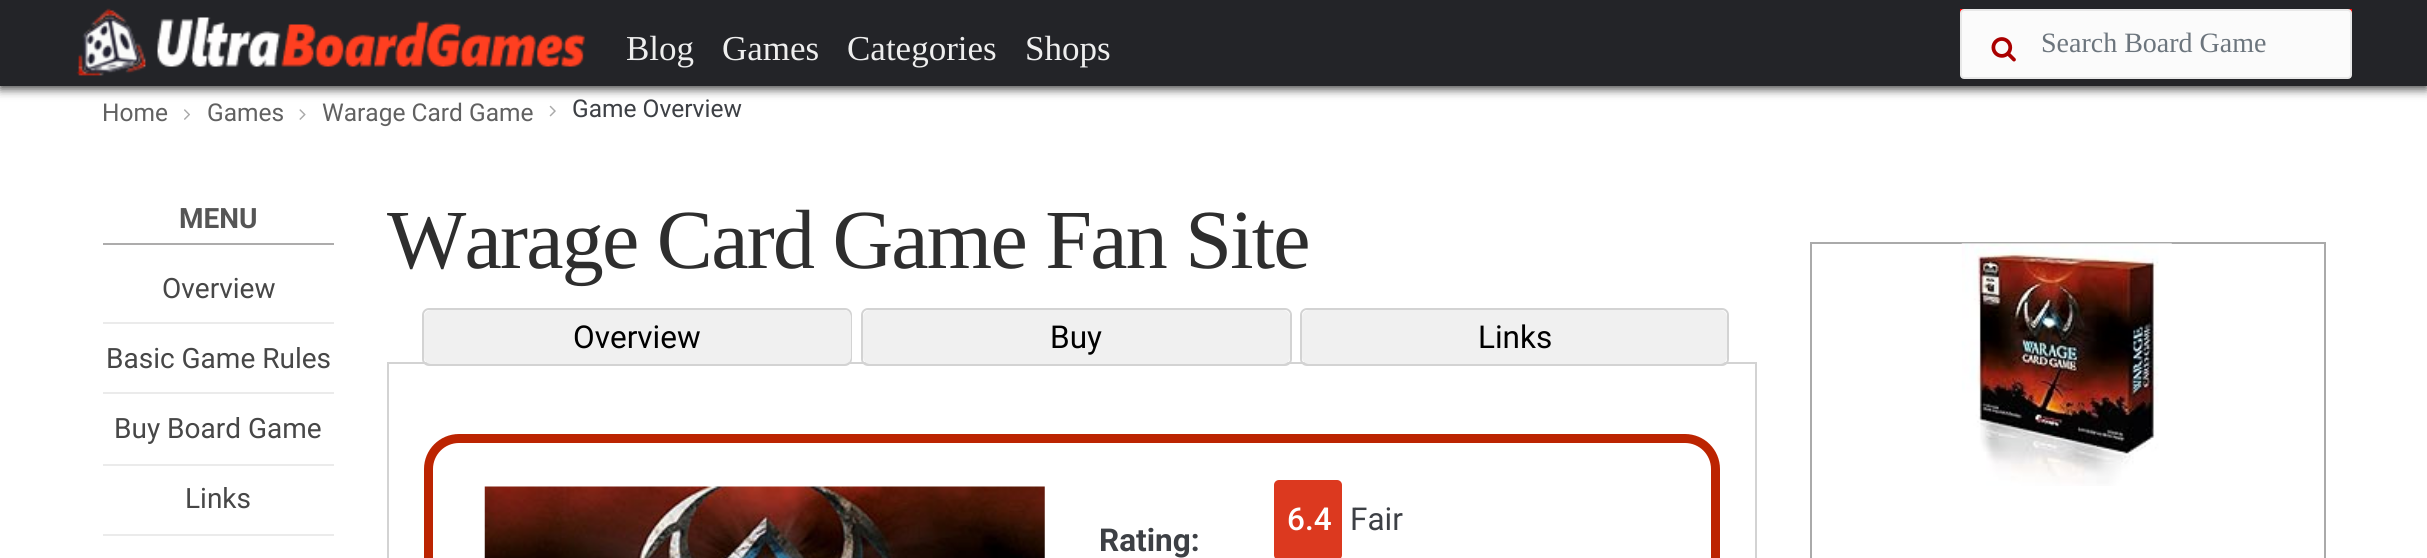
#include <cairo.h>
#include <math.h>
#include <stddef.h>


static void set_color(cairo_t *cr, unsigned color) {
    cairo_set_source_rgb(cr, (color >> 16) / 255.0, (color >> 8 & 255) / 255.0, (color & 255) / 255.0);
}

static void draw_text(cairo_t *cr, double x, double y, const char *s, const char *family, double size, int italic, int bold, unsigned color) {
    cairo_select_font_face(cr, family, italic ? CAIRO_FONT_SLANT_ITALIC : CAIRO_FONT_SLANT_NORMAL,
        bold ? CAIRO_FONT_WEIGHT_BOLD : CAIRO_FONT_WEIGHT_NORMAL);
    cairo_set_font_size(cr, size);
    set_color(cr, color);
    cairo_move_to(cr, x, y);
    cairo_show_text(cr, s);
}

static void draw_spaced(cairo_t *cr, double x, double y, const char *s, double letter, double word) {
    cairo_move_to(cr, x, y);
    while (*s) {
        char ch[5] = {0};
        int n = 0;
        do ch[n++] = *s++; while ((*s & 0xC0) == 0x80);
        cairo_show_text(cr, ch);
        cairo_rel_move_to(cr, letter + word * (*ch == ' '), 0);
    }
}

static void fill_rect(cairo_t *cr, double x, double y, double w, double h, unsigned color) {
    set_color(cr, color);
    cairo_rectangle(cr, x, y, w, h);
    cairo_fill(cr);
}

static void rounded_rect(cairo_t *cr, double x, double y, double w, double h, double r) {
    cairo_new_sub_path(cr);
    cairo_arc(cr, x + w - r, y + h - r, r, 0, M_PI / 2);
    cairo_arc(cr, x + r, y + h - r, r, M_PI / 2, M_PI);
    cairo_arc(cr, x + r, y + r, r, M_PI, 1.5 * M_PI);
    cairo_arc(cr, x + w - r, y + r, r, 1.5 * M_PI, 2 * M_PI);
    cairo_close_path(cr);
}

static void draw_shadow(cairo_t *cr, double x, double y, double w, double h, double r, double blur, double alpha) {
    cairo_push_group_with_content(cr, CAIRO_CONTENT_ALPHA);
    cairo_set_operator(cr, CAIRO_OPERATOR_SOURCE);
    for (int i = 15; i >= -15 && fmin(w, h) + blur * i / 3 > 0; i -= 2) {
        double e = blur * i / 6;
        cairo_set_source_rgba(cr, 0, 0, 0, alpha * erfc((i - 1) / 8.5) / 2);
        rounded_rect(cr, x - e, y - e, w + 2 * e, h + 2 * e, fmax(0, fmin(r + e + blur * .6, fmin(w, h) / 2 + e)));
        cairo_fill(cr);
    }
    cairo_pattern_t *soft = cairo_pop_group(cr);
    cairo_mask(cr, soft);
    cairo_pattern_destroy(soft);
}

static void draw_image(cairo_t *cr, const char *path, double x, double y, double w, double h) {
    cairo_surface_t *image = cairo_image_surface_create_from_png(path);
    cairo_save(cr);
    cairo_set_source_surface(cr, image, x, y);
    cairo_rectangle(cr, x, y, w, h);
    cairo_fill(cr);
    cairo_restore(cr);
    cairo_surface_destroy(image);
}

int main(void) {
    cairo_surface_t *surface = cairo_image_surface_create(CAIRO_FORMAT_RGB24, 2427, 558);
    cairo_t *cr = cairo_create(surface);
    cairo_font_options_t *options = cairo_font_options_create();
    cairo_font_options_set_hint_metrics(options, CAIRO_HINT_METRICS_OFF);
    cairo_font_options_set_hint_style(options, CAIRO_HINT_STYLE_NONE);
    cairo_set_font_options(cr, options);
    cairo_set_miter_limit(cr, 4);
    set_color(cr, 0xFFFFFF);
    cairo_paint(cr);
    set_color(cr, 0x444444);
    draw_shadow(cr, 0, 4, 2427, 85, 0, 5, 1);
    fill_rect(cr, 0, 0, 2427, 86, 0x232428);
    draw_image(cr, "assets/img1.png", 76, 8, 509, 69);
    draw_text(cr, 626, 60, "Blog", "Liberation Serif", 35, 0, 0, 0xEEEEEE);
    draw_text(cr, 722, 60, "Games", "Liberation Serif", 35, 0, 0, 0xEEEEEE);
    draw_text(cr, 847, 60, "Categories", "Liberation Serif", 35, 0, 0, 0xEEEEEE);
    draw_text(cr, 1025, 60, "Shops", "Liberation Serif", 35, 0, 0, 0xEEEEEE);
    fill_rect(cr, 1960, 9, 392, 4, 0xFF0000);
    set_color(cr, 0xFBFBFB);
    rounded_rect(cr, 1961, 10, 390, 68, 3);
    cairo_fill_preserve(cr);
    set_color(cr, 0xE8E8E8);
    cairo_stroke(cr);
    draw_image(cr, "assets/img2.png", 1991, 37, 25, 25);
    draw_text(cr, 2041, 52, "Search Board Game", "Liberation Serif", 28, 0, 0, 0x6C757D);
    draw_text(cr, 102, 121, "Home", "Roboto", 24.5, 0, 0, 0x616161);
    draw_image(cr, "assets/img3.png", 184, 109, 6, 11);
    draw_text(cr, 207, 121, "Games", "Roboto", 24.5, 0, 0, 0x616161);
    draw_image(cr, "assets/img4.png", 299, 109, 7, 11);
    draw_text(cr, 322, 121, "Warage Card Game", "Roboto", 24.5, 0, 0, 0x616161);
    draw_image(cr, "assets/img5.png", 549, 105, 7, 12);
    draw_text(cr, 572, 117, "Game Overview", "Roboto", 24.5, 0, 0, 0x3D4045);
    fill_rect(cr, 103, 243, 231, 2, 0xADACAC);
    draw_text(cr, 179, 228, "MENU", "Roboto", 28, 0, 1, 0x555555);
    fill_rect(cr, 103, 322, 231, 2, 0xEBEBEB);
    draw_text(cr, 162, 298, "Overview", "Roboto", 28, 0, 0, 0x474747);
    fill_rect(cr, 103, 392, 231, 2, 0xEBEBEB);
    draw_text(cr, 106, 368, "Basic Game Rules", "Roboto", 28, 0, 0, 0x474747);
    fill_rect(cr, 103, 464, 231, 2, 0xEBEBEB);
    draw_text(cr, 114, 438, "Buy Board Game", "Roboto", 28, 0, 0, 0x474747);
    fill_rect(cr, 103, 534, 231, 2, 0xEBEBEB);
    draw_text(cr, 185, 508, "Links", "Roboto", 28, 0, 0, 0x474747);
    cairo_select_font_face(cr, "Liberation Serif", CAIRO_FONT_SLANT_NORMAL, CAIRO_FONT_WEIGHT_NORMAL);
    cairo_set_font_size(cr, 84);
    set_color(cr, 0x2E2E2E);
    draw_spaced(cr, 387, 268, "Warage Card Game Fan Site", -1.75, 0);
    cairo_rectangle(cr, 388, 363, 1368, 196);
    set_color(cr, 0xD3D3D3);
    cairo_stroke(cr);
    rounded_rect(cr, 423, 309, 428, 56, 6);
    cairo_stroke(cr);
    set_color(cr, 0xF0F0F0);
    rounded_rect(cr, 424, 310, 427, 54, 7);
    cairo_fill(cr);
    draw_text(cr, 573, 348, "Overview", "Roboto", 31.5, 0, 0, 0x000000);
    rounded_rect(cr, 862, 309, 429, 56, 6);
    set_color(cr, 0xD3D3D3);
    cairo_stroke(cr);
    set_color(cr, 0xF0F0F0);
    rounded_rect(cr, 863, 310, 427, 54, 7);
    cairo_fill(cr);
    draw_text(cr, 1050, 348, "Buy", "Roboto", 31.5, 0, 0, 0x000000);
    rounded_rect(cr, 1301, 309, 427, 56, 6);
    set_color(cr, 0xD3D3D3);
    cairo_stroke(cr);
    set_color(cr, 0xF0F0F0);
    rounded_rect(cr, 1302, 310, 425, 54, 7);
    cairo_fill(cr);
    draw_text(cr, 1478, 348, "Links", "Roboto", 31.5, 0, 0, 0x000000);
    rounded_rect(cr, 428.5, 438.5, 1287, 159, 30.5);
    set_color(cr, 0xBC2401);
    cairo_set_line_width(cr, 9);
    cairo_stroke(cr);
    draw_image(cr, "assets/img6.png", 484, 486, 561, 72);
    set_color(cr, 0xDC391F);
    rounded_rect(cr, 1274, 480, 68, 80, 5);
    cairo_fill(cr);
    draw_text(cr, 1287, 530, "6.4", "Roboto Medium", 31.5, 0, 0, 0xFFFFFF);
    draw_text(cr, 1350, 530, "Fair", "Roboto", 31.5, 0, 0, 0x3D4045);
    draw_text(cr, 1099, 551, "Rating:", "Roboto", 31.5, 0, 1, 0x3D4045);
    cairo_rectangle(cr, 1811, 243, 514, 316);
    set_color(cr, 0xAAAAAA);
    cairo_set_line_width(cr, 2);
    cairo_stroke(cr);
    draw_image(cr, "assets/img7.png", 1961, 243, 211, 243);
    cairo_surface_write_to_png(surface, "output.png");
    cairo_font_options_destroy(options);
    cairo_destroy(cr);
    cairo_surface_destroy(surface);
    return 0;
}
